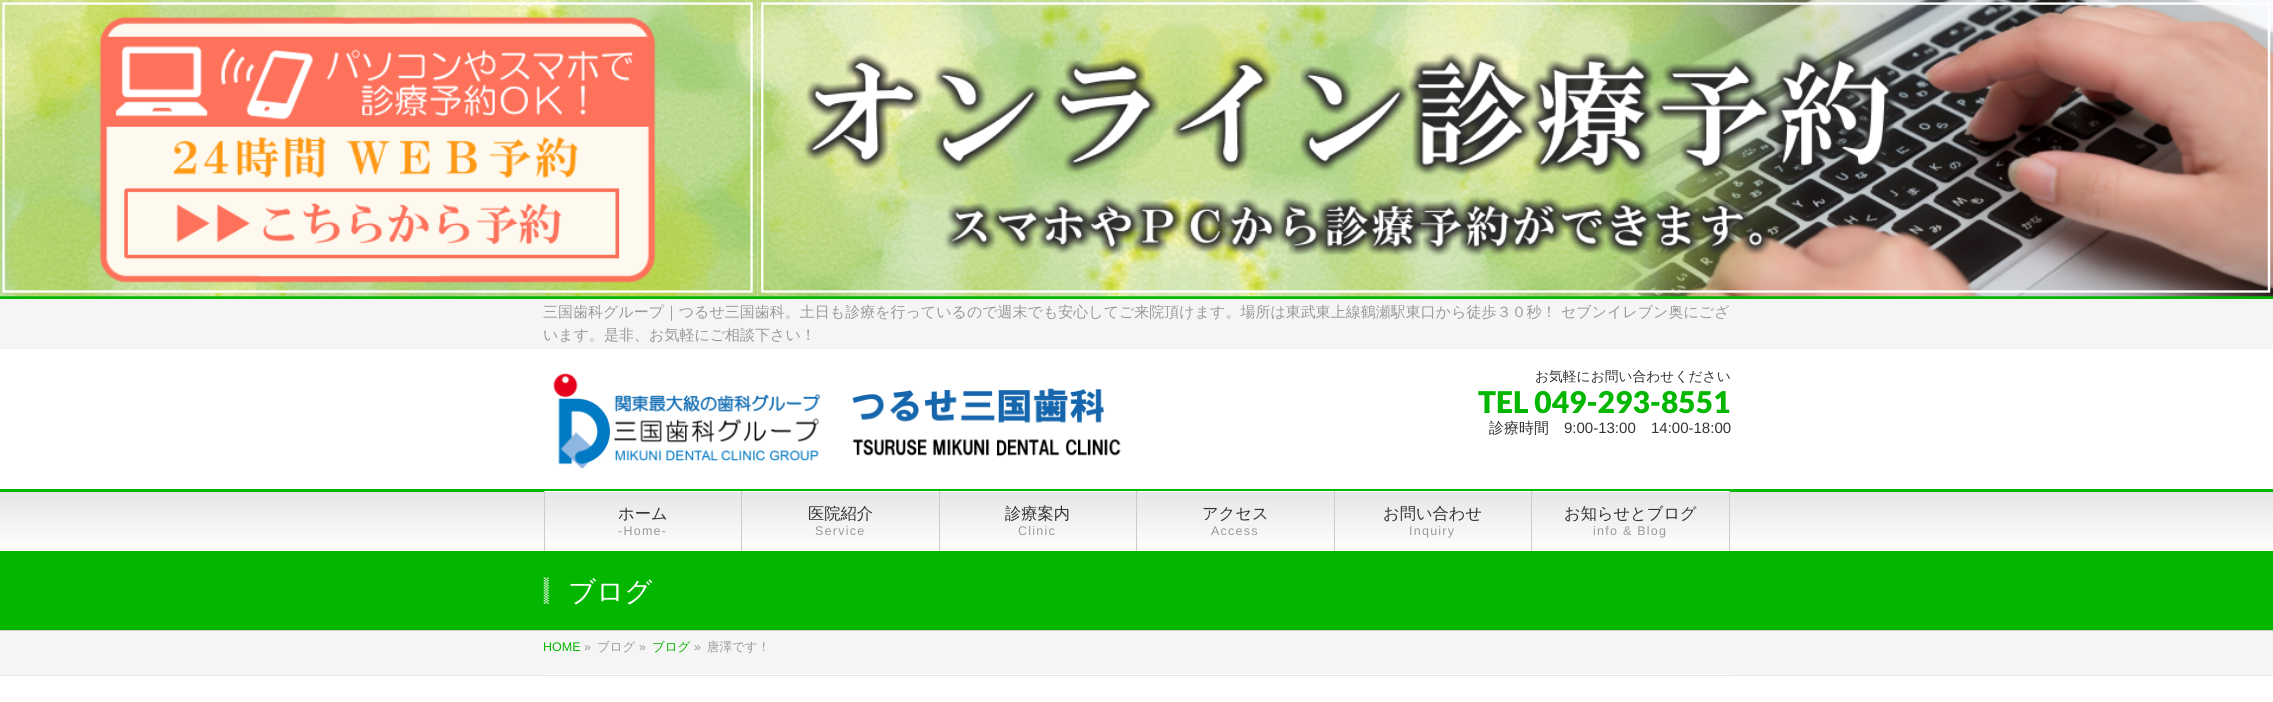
#include <cairo.h>
#include <math.h>
#include <stddef.h>


static void set_color(cairo_t *cr, unsigned color) {
    cairo_set_source_rgb(cr, (color >> 16) / 255.0, (color >> 8 & 255) / 255.0, (color & 255) / 255.0);
}

static void draw_text(cairo_t *cr, double x, double y, const char *s, const char *family, double size, int italic, int bold, unsigned color) {
    cairo_select_font_face(cr, family, italic ? CAIRO_FONT_SLANT_ITALIC : CAIRO_FONT_SLANT_NORMAL,
        bold ? CAIRO_FONT_WEIGHT_BOLD : CAIRO_FONT_WEIGHT_NORMAL);
    cairo_set_font_size(cr, size);
    set_color(cr, color);
    cairo_move_to(cr, x, y);
    cairo_show_text(cr, s);
}

static void draw_spaced(cairo_t *cr, double x, double y, const char *s, double letter, double word) {
    cairo_move_to(cr, x, y);
    while (*s) {
        char ch[5] = {0};
        int n = 0;
        do ch[n++] = *s++; while ((*s & 0xC0) == 0x80);
        cairo_show_text(cr, ch);
        cairo_rel_move_to(cr, letter + word * (*ch == ' '), 0);
    }
}

static void fill_rect(cairo_t *cr, double x, double y, double w, double h, unsigned color) {
    set_color(cr, color);
    cairo_rectangle(cr, x, y, w, h);
    cairo_fill(cr);
}

static void draw_image(cairo_t *cr, const char *path, double x, double y, double w, double h) {
    cairo_surface_t *image = cairo_image_surface_create_from_png(path);
    cairo_save(cr);
    cairo_set_source_surface(cr, image, x, y);
    cairo_rectangle(cr, x, y, w, h);
    cairo_fill(cr);
    cairo_restore(cr);
    cairo_surface_destroy(image);
}

int main(void) {
    cairo_surface_t *surface = cairo_image_surface_create(CAIRO_FORMAT_RGB24, 2273, 702);
    cairo_t *cr = cairo_create(surface);
    cairo_font_options_t *options = cairo_font_options_create();
    cairo_font_options_set_hint_metrics(options, CAIRO_HINT_METRICS_OFF);
    cairo_font_options_set_hint_style(options, CAIRO_HINT_STYLE_NONE);
    cairo_set_font_options(cr, options);
    cairo_set_miter_limit(cr, 4);
    cairo_pattern_t *gradient;
    set_color(cr, 0xFFFFFF);
    cairo_paint(cr);
    fill_rect(cr, 0, 296, 2273, 3, 0x03B700);
    draw_image(cr, "assets/img1.png", 0, 0, 758, 297);
    draw_image(cr, "assets/img2.png", 757, 0, 1516, 297);
    fill_rect(cr, 0, 299, 2273, 50, 0xF5F5F5);
    draw_text(cr, 543, 317, "三国歯科グループ｜つるせ三国歯科。土日も診療を行っているので週末でも安心してご来院頂けます。場所は東武東上線鶴瀬駅東口から徒歩３０秒！ セブンイレブン奥にござ", "WenQuanYi Zen Hei Medium", 15, 0, 0, 0x999999);
    draw_text(cr, 543, 340, "います。是非、お気軽にご相談下さい！", "WenQuanYi Zen Hei Medium", 15, 0, 0, 0x999999);
    draw_image(cr, "assets/img3.png", 553, 373, 568, 96);
    draw_text(cr, 1535, 381, "お気軽にお問い合わせください", "WenQuanYi Zen Hei Medium", 13.75, 0, 0, 0x333333);
    draw_text(cr, 1478, 413, "TEL 049-293-8551", "Lato Black", 30, 0, 0, 0x03B700);
    draw_text(cr, 1489, 433, "診療時間", "WenQuanYi Zen Hei Medium", 15, 0, 0, 0x333333);
    draw_text(cr, 1564, 433, "9:00-13:00", "Liberation Sans", 15, 0, 0, 0x333333);
    draw_text(cr, 1651, 433, "14:00-18:00", "Liberation Sans", 15, 0, 0, 0x333333);
    gradient = cairo_pattern_create_linear(1137, 491, 1137, 551);
    cairo_pattern_add_color_stop_rgba(gradient, 0, 0.898, 0.898, 0.898, 1);
    cairo_pattern_add_color_stop_rgba(gradient, 1, 1, 1, 1, 1);
    cairo_set_source(cr, gradient);
    cairo_pattern_destroy(gradient);
    cairo_rectangle(cr, 0, 492, 2273, 53);
    cairo_fill(cr);
    fill_rect(cr, 0, 489, 2273, 3, 0x03B700);
    fill_rect(cr, 544, 491, 1, 60, 0xCCCCCC);
    gradient = cairo_pattern_create_linear(545, 491, 545, 551);
    cairo_pattern_add_color_stop_rgba(gradient, 0, 0.898, 0.898, 0.898, 1);
    cairo_pattern_add_color_stop_rgba(gradient, 1, 1, 1, 1, 1);
    cairo_set_source(cr, gradient);
    cairo_pattern_destroy(gradient);
    cairo_rectangle(cr, 545, 491, 198, 1);
    cairo_fill(cr);
    fill_rect(cr, 545, 491, 196, 1, 0xFFFFFF);
    fill_rect(cr, 741, 491, 1, 60, 0xCCCCCC);
    draw_text(cr, 618, 519, "ホーム", "WenQuanYi Zen Hei Medium", 16.25, 0, 0, 0x333333);
    cairo_select_font_face(cr, "Liberation Sans", CAIRO_FONT_SLANT_NORMAL, CAIRO_FONT_WEIGHT_NORMAL);
    cairo_set_font_size(cr, 12.5);
    set_color(cr, 0x999999);
    draw_spaced(cr, 618, 535, "-Home-", 1.25, 0);
    fill_rect(cr, 743, 491, 196, 1, 0xFFFFFF);
    fill_rect(cr, 939, 491, 1, 60, 0xCCCCCC);
    draw_text(cr, 808, 519, "医院紹介", "WenQuanYi Zen Hei Medium", 16.25, 0, 0, 0x333333);
    cairo_select_font_face(cr, "Liberation Sans", CAIRO_FONT_SLANT_NORMAL, CAIRO_FONT_WEIGHT_NORMAL);
    cairo_set_font_size(cr, 12.5);
    set_color(cr, 0x999999);
    draw_spaced(cr, 815, 535, "Service", 1.25, 0);
    gradient = cairo_pattern_create_linear(940, 491, 940, 551);
    cairo_pattern_add_color_stop_rgba(gradient, 0, 0.898, 0.898, 0.898, 1);
    cairo_pattern_add_color_stop_rgba(gradient, 1, 1, 1, 1, 1);
    cairo_set_source(cr, gradient);
    cairo_pattern_destroy(gradient);
    cairo_rectangle(cr, 940, 491, 198, 1);
    cairo_fill(cr);
    fill_rect(cr, 940, 491, 196, 1, 0xFFFFFF);
    fill_rect(cr, 1136, 491, 1, 60, 0xCCCCCC);
    draw_text(cr, 1005, 519, "診療案内", "WenQuanYi Zen Hei Medium", 16.25, 0, 0, 0x333333);
    cairo_select_font_face(cr, "Liberation Sans", CAIRO_FONT_SLANT_NORMAL, CAIRO_FONT_WEIGHT_NORMAL);
    cairo_set_font_size(cr, 12.5);
    set_color(cr, 0x999999);
    draw_spaced(cr, 1018, 535, "Clinic", 1.25, 0);
    fill_rect(cr, 1138, 491, 196, 1, 0xFFFFFF);
    fill_rect(cr, 1334, 491, 1, 60, 0xCCCCCC);
    draw_text(cr, 1202, 519, "アクセス", "WenQuanYi Zen Hei Medium", 16.25, 0, 0, 0x333333);
    cairo_select_font_face(cr, "Liberation Sans", CAIRO_FONT_SLANT_NORMAL, CAIRO_FONT_WEIGHT_NORMAL);
    cairo_set_font_size(cr, 12.5);
    set_color(cr, 0x999999);
    draw_spaced(cr, 1211, 535, "Access", 1.25, 0);
    gradient = cairo_pattern_create_linear(1335, 491, 1335, 551);
    cairo_pattern_add_color_stop_rgba(gradient, 0, 0.898, 0.898, 0.898, 1);
    cairo_pattern_add_color_stop_rgba(gradient, 1, 1, 1, 1, 1);
    cairo_set_source(cr, gradient);
    cairo_pattern_destroy(gradient);
    cairo_rectangle(cr, 1335, 491, 198, 1);
    cairo_fill(cr);
    fill_rect(cr, 1335, 491, 196, 1, 0xFFFFFF);
    fill_rect(cr, 1531, 491, 1, 60, 0xCCCCCC);
    draw_text(cr, 1383, 519, "お問い合わせ", "WenQuanYi Zen Hei Medium", 16.25, 0, 0, 0x333333);
    cairo_select_font_face(cr, "Liberation Sans", CAIRO_FONT_SLANT_NORMAL, CAIRO_FONT_WEIGHT_NORMAL);
    cairo_set_font_size(cr, 12.5);
    set_color(cr, 0x999999);
    draw_spaced(cr, 1409, 535, "Inquiry", 1.25, 0);
    fill_rect(cr, 1533, 491, 196, 1, 0xFFFFFF);
    fill_rect(cr, 1729, 491, 1, 60, 0xCCCCCC);
    draw_text(cr, 1564, 519, "お知らせとブログ", "WenQuanYi Zen Hei Medium", 16.25, 0, 0, 0x333333);
    cairo_select_font_face(cr, "Liberation Sans", CAIRO_FONT_SLANT_NORMAL, CAIRO_FONT_WEIGHT_NORMAL);
    cairo_set_font_size(cr, 12.5);
    set_color(cr, 0x999999);
    draw_spaced(cr, 1593, 535, "info & Blog", 1.25, 0);
    fill_rect(cr, 0, 551, 2273, 79, 0x03B700);
    fill_rect(cr, 0, 630, 2273, 1, 0xCCCCCC);
    draw_image(cr, "assets/img4.png", 543, 577, 6, 27);
    draw_text(cr, 568, 601, "ブログ", "WenQuanYi Zen Hei Medium", 27.5, 0, 0, 0xFFFFFF);
    fill_rect(cr, 0, 631, 2273, 44, 0xF5F5F5);
    fill_rect(cr, 0, 675, 2273, 1, 0xE5E5E5);
    fill_rect(cr, 544, 674, 1187, 1, 0xFFFFFF);
    draw_text(cr, 543, 651, "HOME", "Liberation Sans", 12.5, 0, 0, 0x03B700);
    draw_text(cr, 584, 651, "»", "Liberation Sans", 12.5, 0, 0, 0x999999);
    draw_text(cr, 597, 651, "ブログ", "WenQuanYi Zen Hei Medium", 12.5, 0, 0, 0x999999);
    draw_text(cr, 639, 651, "»", "Liberation Sans", 12.5, 0, 0, 0x999999);
    draw_text(cr, 652, 651, "ブログ", "WenQuanYi Zen Hei Medium", 12.5, 0, 0, 0x03B700);
    draw_text(cr, 694, 651, "»", "Liberation Sans", 12.5, 0, 0, 0x999999);
    draw_text(cr, 707, 651, "唐澤です！", "WenQuanYi Zen Hei Medium", 12.5, 0, 0, 0x999999);
    cairo_surface_write_to_png(surface, "output.png");
    cairo_font_options_destroy(options);
    cairo_destroy(cr);
    cairo_surface_destroy(surface);
    return 0;
}
